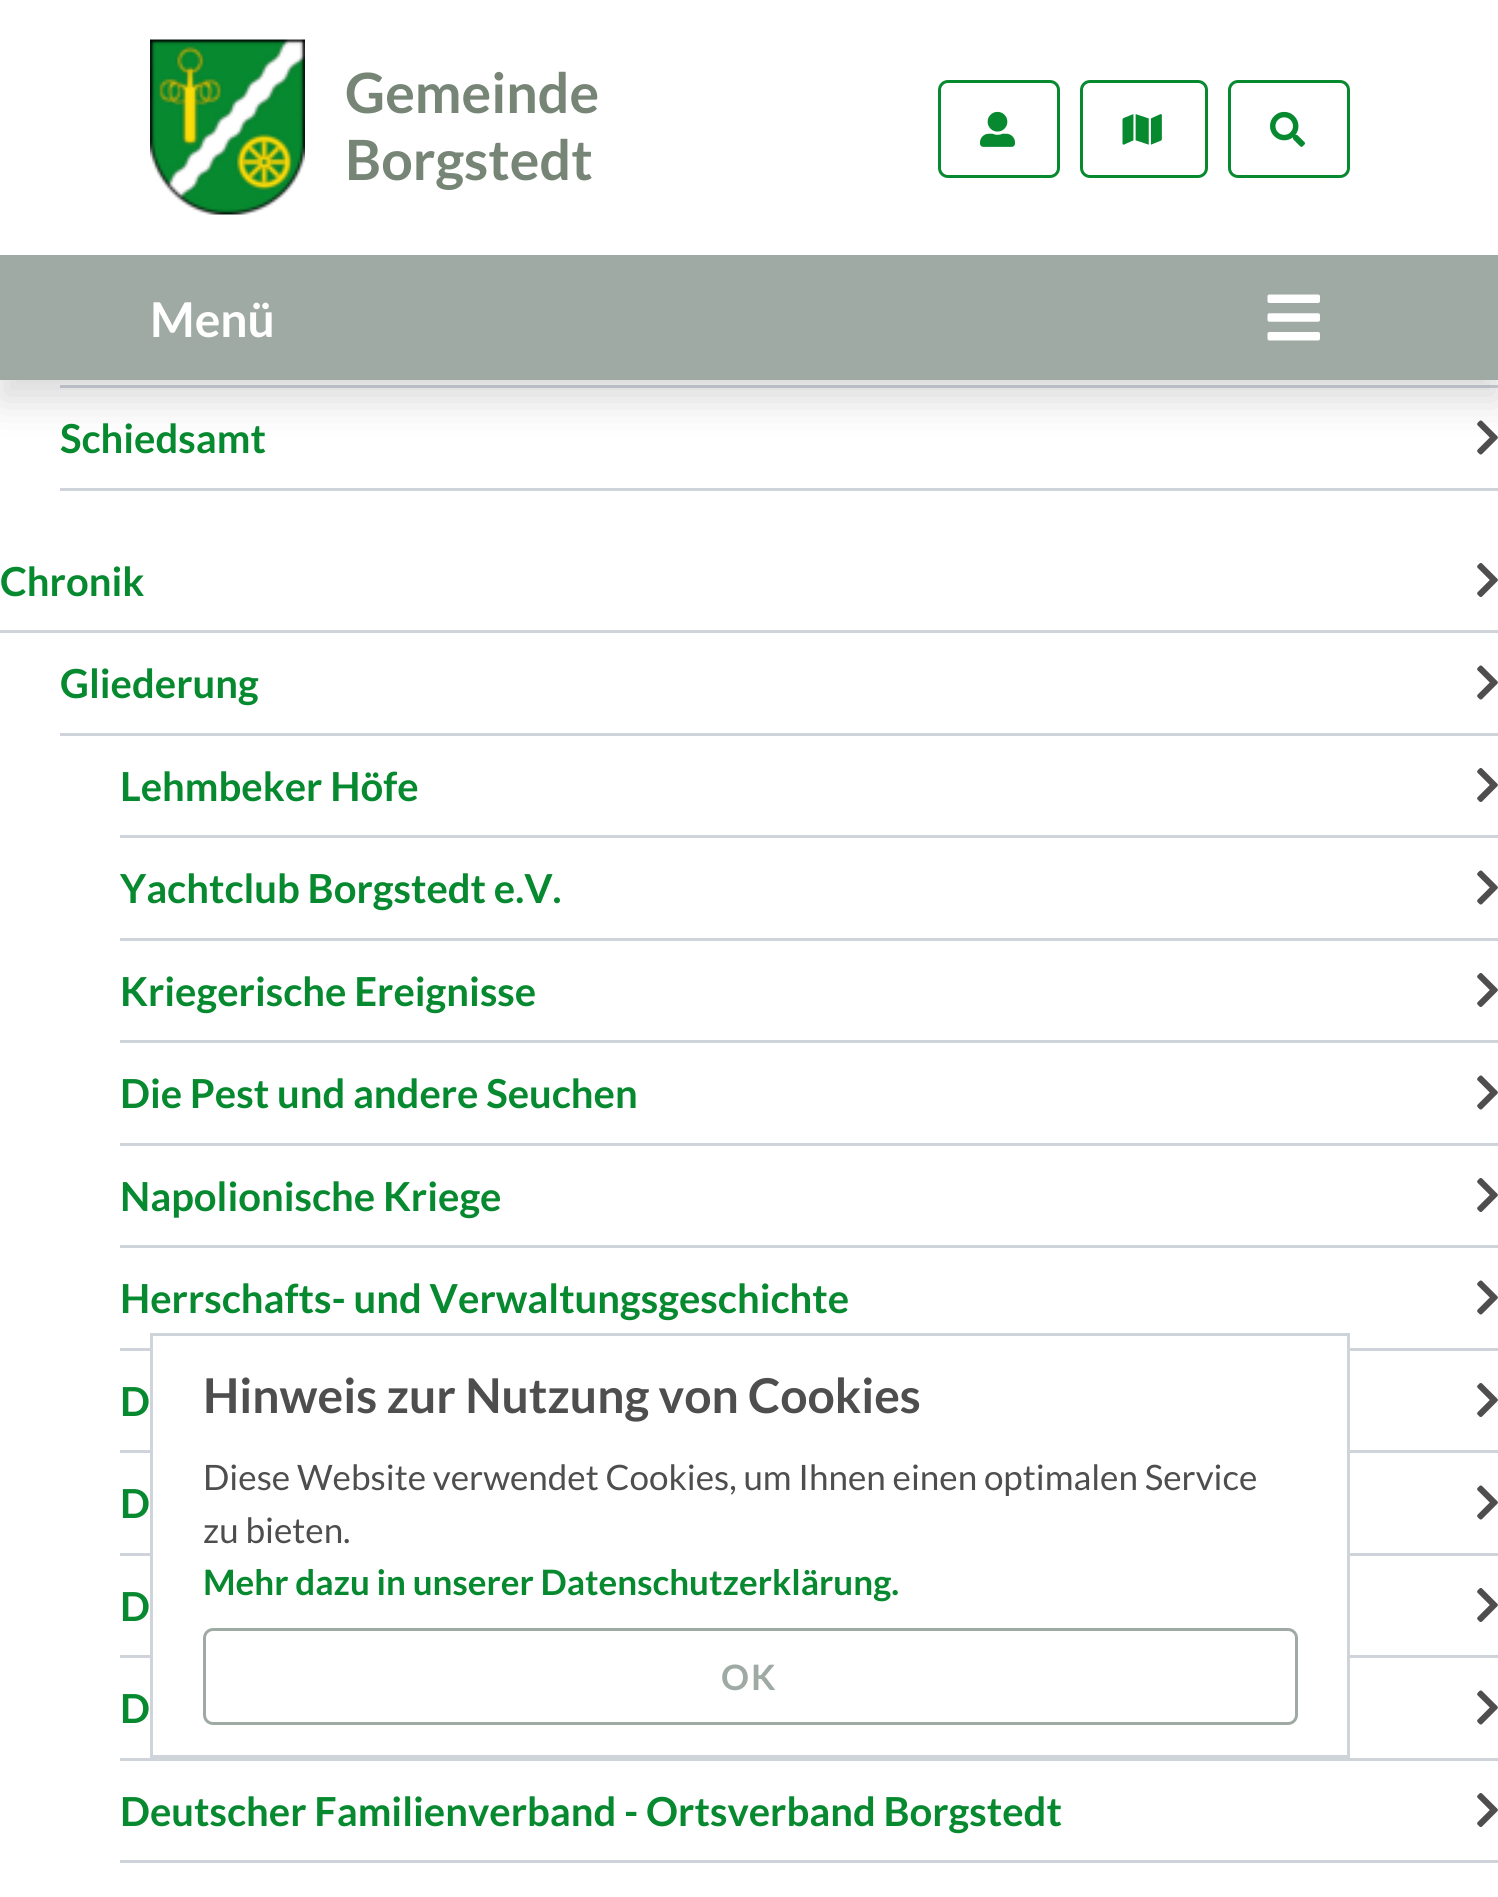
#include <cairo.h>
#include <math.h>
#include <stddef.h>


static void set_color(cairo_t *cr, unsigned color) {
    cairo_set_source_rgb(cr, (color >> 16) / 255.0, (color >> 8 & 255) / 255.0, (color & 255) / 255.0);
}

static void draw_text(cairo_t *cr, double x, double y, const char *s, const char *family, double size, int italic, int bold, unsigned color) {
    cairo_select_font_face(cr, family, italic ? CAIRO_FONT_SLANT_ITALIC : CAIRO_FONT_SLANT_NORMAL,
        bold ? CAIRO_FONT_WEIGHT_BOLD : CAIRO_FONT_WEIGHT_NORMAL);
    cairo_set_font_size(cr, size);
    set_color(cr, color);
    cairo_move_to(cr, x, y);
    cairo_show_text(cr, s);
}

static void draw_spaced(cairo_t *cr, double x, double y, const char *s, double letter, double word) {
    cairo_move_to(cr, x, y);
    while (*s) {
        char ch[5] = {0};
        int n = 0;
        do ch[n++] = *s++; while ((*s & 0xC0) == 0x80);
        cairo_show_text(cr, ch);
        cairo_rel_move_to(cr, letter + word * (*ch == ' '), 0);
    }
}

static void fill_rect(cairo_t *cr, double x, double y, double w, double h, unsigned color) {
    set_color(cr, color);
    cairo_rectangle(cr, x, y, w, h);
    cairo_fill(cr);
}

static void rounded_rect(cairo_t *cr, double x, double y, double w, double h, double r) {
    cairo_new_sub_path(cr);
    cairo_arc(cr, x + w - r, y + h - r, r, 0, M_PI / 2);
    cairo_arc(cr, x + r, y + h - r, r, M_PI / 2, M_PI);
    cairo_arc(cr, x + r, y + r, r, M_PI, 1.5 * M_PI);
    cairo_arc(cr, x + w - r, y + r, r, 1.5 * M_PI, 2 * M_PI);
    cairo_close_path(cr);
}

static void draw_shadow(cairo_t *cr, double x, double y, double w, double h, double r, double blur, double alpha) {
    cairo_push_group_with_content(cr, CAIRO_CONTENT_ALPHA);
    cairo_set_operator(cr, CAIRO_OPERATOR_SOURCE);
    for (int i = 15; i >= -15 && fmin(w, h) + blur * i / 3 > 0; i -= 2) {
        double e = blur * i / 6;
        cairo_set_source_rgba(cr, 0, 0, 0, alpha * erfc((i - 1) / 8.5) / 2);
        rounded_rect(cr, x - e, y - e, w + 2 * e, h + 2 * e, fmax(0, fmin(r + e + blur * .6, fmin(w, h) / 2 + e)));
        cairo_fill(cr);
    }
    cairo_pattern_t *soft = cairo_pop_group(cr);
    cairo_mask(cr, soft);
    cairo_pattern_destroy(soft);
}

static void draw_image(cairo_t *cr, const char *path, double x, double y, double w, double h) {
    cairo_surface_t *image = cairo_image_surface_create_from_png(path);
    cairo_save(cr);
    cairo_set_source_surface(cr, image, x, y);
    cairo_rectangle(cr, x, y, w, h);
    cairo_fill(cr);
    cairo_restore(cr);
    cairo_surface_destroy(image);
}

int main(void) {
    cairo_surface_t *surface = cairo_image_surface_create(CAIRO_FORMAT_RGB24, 1498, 1897);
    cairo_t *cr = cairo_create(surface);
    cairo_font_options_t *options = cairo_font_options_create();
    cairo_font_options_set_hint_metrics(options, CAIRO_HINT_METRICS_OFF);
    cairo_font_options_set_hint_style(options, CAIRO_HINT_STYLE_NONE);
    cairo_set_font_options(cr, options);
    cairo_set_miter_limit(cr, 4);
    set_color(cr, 0xFFFFFF);
    cairo_paint(cr);
    fill_rect(cr, 60, 385, 1438, 3, 0xCED4DA);
    draw_image(cr, "assets/img6.png", 1477, 420, 21, 35);
    set_color(cr, 0x000000);
    draw_shadow(cr, 0, 20, 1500, 380, 0, 20, 0.15);
    fill_rect(cr, 0, 0, 1498, 255, 0xFFFFFF);
    draw_image(cr, "assets/img1.png", 150, 39, 155, 176);
    draw_text(cr, 345, 113, "Gemeinde", "Lato", 55.5, 0, 1, 0x768576);
    draw_text(cr, 345, 180, "Borgstedt", "Lato", 55.5, 0, 1, 0x768576);
    rounded_rect(cr, 939.5, 81.5, 119, 95, 8.5);
    set_color(cr, 0x078930);
    cairo_set_line_width(cr, 3);
    cairo_stroke(cr);
    draw_image(cr, "assets/img2.png", 980, 111, 35, 36);
    rounded_rect(cr, 1081.5, 81.5, 125, 95, 8.5);
    cairo_stroke(cr);
    draw_image(cr, "assets/img3.png", 1122, 114, 40, 31);
    rounded_rect(cr, 1229.5, 81.5, 119, 95, 8.5);
    cairo_stroke(cr);
    draw_image(cr, "assets/img4.png", 1270, 111, 35, 36);
    fill_rect(cr, 0, 255, 1498, 125, 0xA0AAA4);
    draw_text(cr, 150, 337, "Menü", "Lato", 48, 0, 1, 0xFFFFFF);
    draw_image(cr, "assets/img5.png", 1267, 294, 53, 47);
    fill_rect(cr, 60, 488, 1438, 3, 0xCED4DA);
    draw_text(cr, 60, 453, "Schiedsamt", "Lato", 40, 0, 1, 0x078930);
    fill_rect(cr, 0, 630, 1498, 3, 0xCED4DA);
    draw_text(cr, 0, 596, "Chronik", "Lato", 40, 0, 1, 0x078930);
    draw_image(cr, "assets/img7.png", 1477, 563, 21, 34);
    fill_rect(cr, 60, 733, 1438, 3, 0xCED4DA);
    draw_text(cr, 60, 698, "Gliederung", "Lato", 40, 0, 1, 0x078930);
    draw_image(cr, "assets/img6.png", 1477, 665, 21, 35);
    fill_rect(cr, 120, 835, 1378, 3, 0xCED4DA);
    draw_text(cr, 120, 801, "Lehmbeker Höfe", "Lato", 40, 0, 1, 0x078930);
    draw_image(cr, "assets/img7.png", 1477, 768, 21, 34);
    fill_rect(cr, 120, 938, 1378, 3, 0xCED4DA);
    draw_text(cr, 120, 903, "Yachtclub Borgstedt e.V.", "Lato", 40, 0, 1, 0x078930);
    draw_image(cr, "assets/img6.png", 1477, 870, 21, 35);
    fill_rect(cr, 120, 1040, 1378, 3, 0xCED4DA);
    draw_text(cr, 120, 1006, "Kriegerische Ereignisse", "Lato", 40, 0, 1, 0x078930);
    draw_image(cr, "assets/img7.png", 1477, 973, 21, 34);
    fill_rect(cr, 120, 1143, 1378, 3, 0xCED4DA);
    draw_text(cr, 120, 1108, "Die Pest und andere Seuchen", "Lato", 40, 0, 1, 0x078930);
    draw_image(cr, "assets/img6.png", 1477, 1075, 21, 35);
    fill_rect(cr, 120, 1245, 1378, 3, 0xCED4DA);
    draw_text(cr, 120, 1211, "Napolionische Kriege", "Lato", 40, 0, 1, 0x078930);
    draw_image(cr, "assets/img7.png", 1477, 1178, 21, 34);
    fill_rect(cr, 120, 1348, 1378, 3, 0xCED4DA);
    draw_text(cr, 120, 1313, "Herrschafts- und Verwaltungsgeschichte", "Lato", 40, 0, 1, 0x078930);
    draw_image(cr, "assets/img6.png", 1477, 1280, 21, 35);
    fill_rect(cr, 120, 1450, 1378, 3, 0xCED4DA);
    draw_text(cr, 120, 1416, "D", "Lato", 40, 0, 1, 0x078930);
    draw_image(cr, "assets/img7.png", 1477, 1383, 21, 34);
    fill_rect(cr, 120, 1553, 1378, 3, 0xCED4DA);
    draw_text(cr, 120, 1518, "D", "Lato", 40, 0, 1, 0x078930);
    draw_image(cr, "assets/img6.png", 1477, 1485, 21, 35);
    fill_rect(cr, 120, 1655, 1378, 3, 0xCED4DA);
    draw_text(cr, 120, 1621, "D", "Lato", 40, 0, 1, 0x078930);
    draw_image(cr, "assets/img7.png", 1477, 1588, 21, 34);
    fill_rect(cr, 120, 1758, 1378, 3, 0xCED4DA);
    draw_text(cr, 120, 1723, "D", "Lato", 40, 0, 1, 0x078930);
    draw_image(cr, "assets/img6.png", 1477, 1690, 21, 35);
    fill_rect(cr, 120, 1860, 1378, 3, 0xCED4DA);
    draw_text(cr, 120, 1826, "Deutscher Familienverband - Ortsverband Borgstedt", "Lato", 40, 0, 1, 0x078930);
    draw_image(cr, "assets/img7.png", 1477, 1793, 21, 34);
    fill_rect(cr, 153, 1348, 1194, 310, 0xFFFFFF);
    cairo_rectangle(cr, 151.5, 1334.5, 1197, 422);
    set_color(cr, 0xCED4DA);
    cairo_stroke(cr);
    draw_text(cr, 203, 1413, "Hinweis zur Nutzung von Cookies", "Lato", 48, 0, 1, 0x4E4E4E);
    draw_text(cr, 203, 1490, "Diese Website verwendet Cookies, um Ihnen einen optimalen Service", "Lato", 35, 0, 0, 0x4E4E4E);
    draw_text(cr, 203, 1543, "zu bieten.", "Lato", 35, 0, 0, 0x4E4E4E);
    draw_text(cr, 203, 1595, "Mehr dazu in unserer Datenschutzerklärung.", "Lato", 35, 0, 1, 0x078930);
    rounded_rect(cr, 204.5, 1629.5, 1092, 94, 8.5);
    set_color(cr, 0xA0AAA4);
    cairo_stroke(cr);
    draw_spaced(cr, 721, 1690, "OK", 2, 0);
    cairo_surface_write_to_png(surface, "output.png");
    cairo_font_options_destroy(options);
    cairo_destroy(cr);
    cairo_surface_destroy(surface);
    return 0;
}
